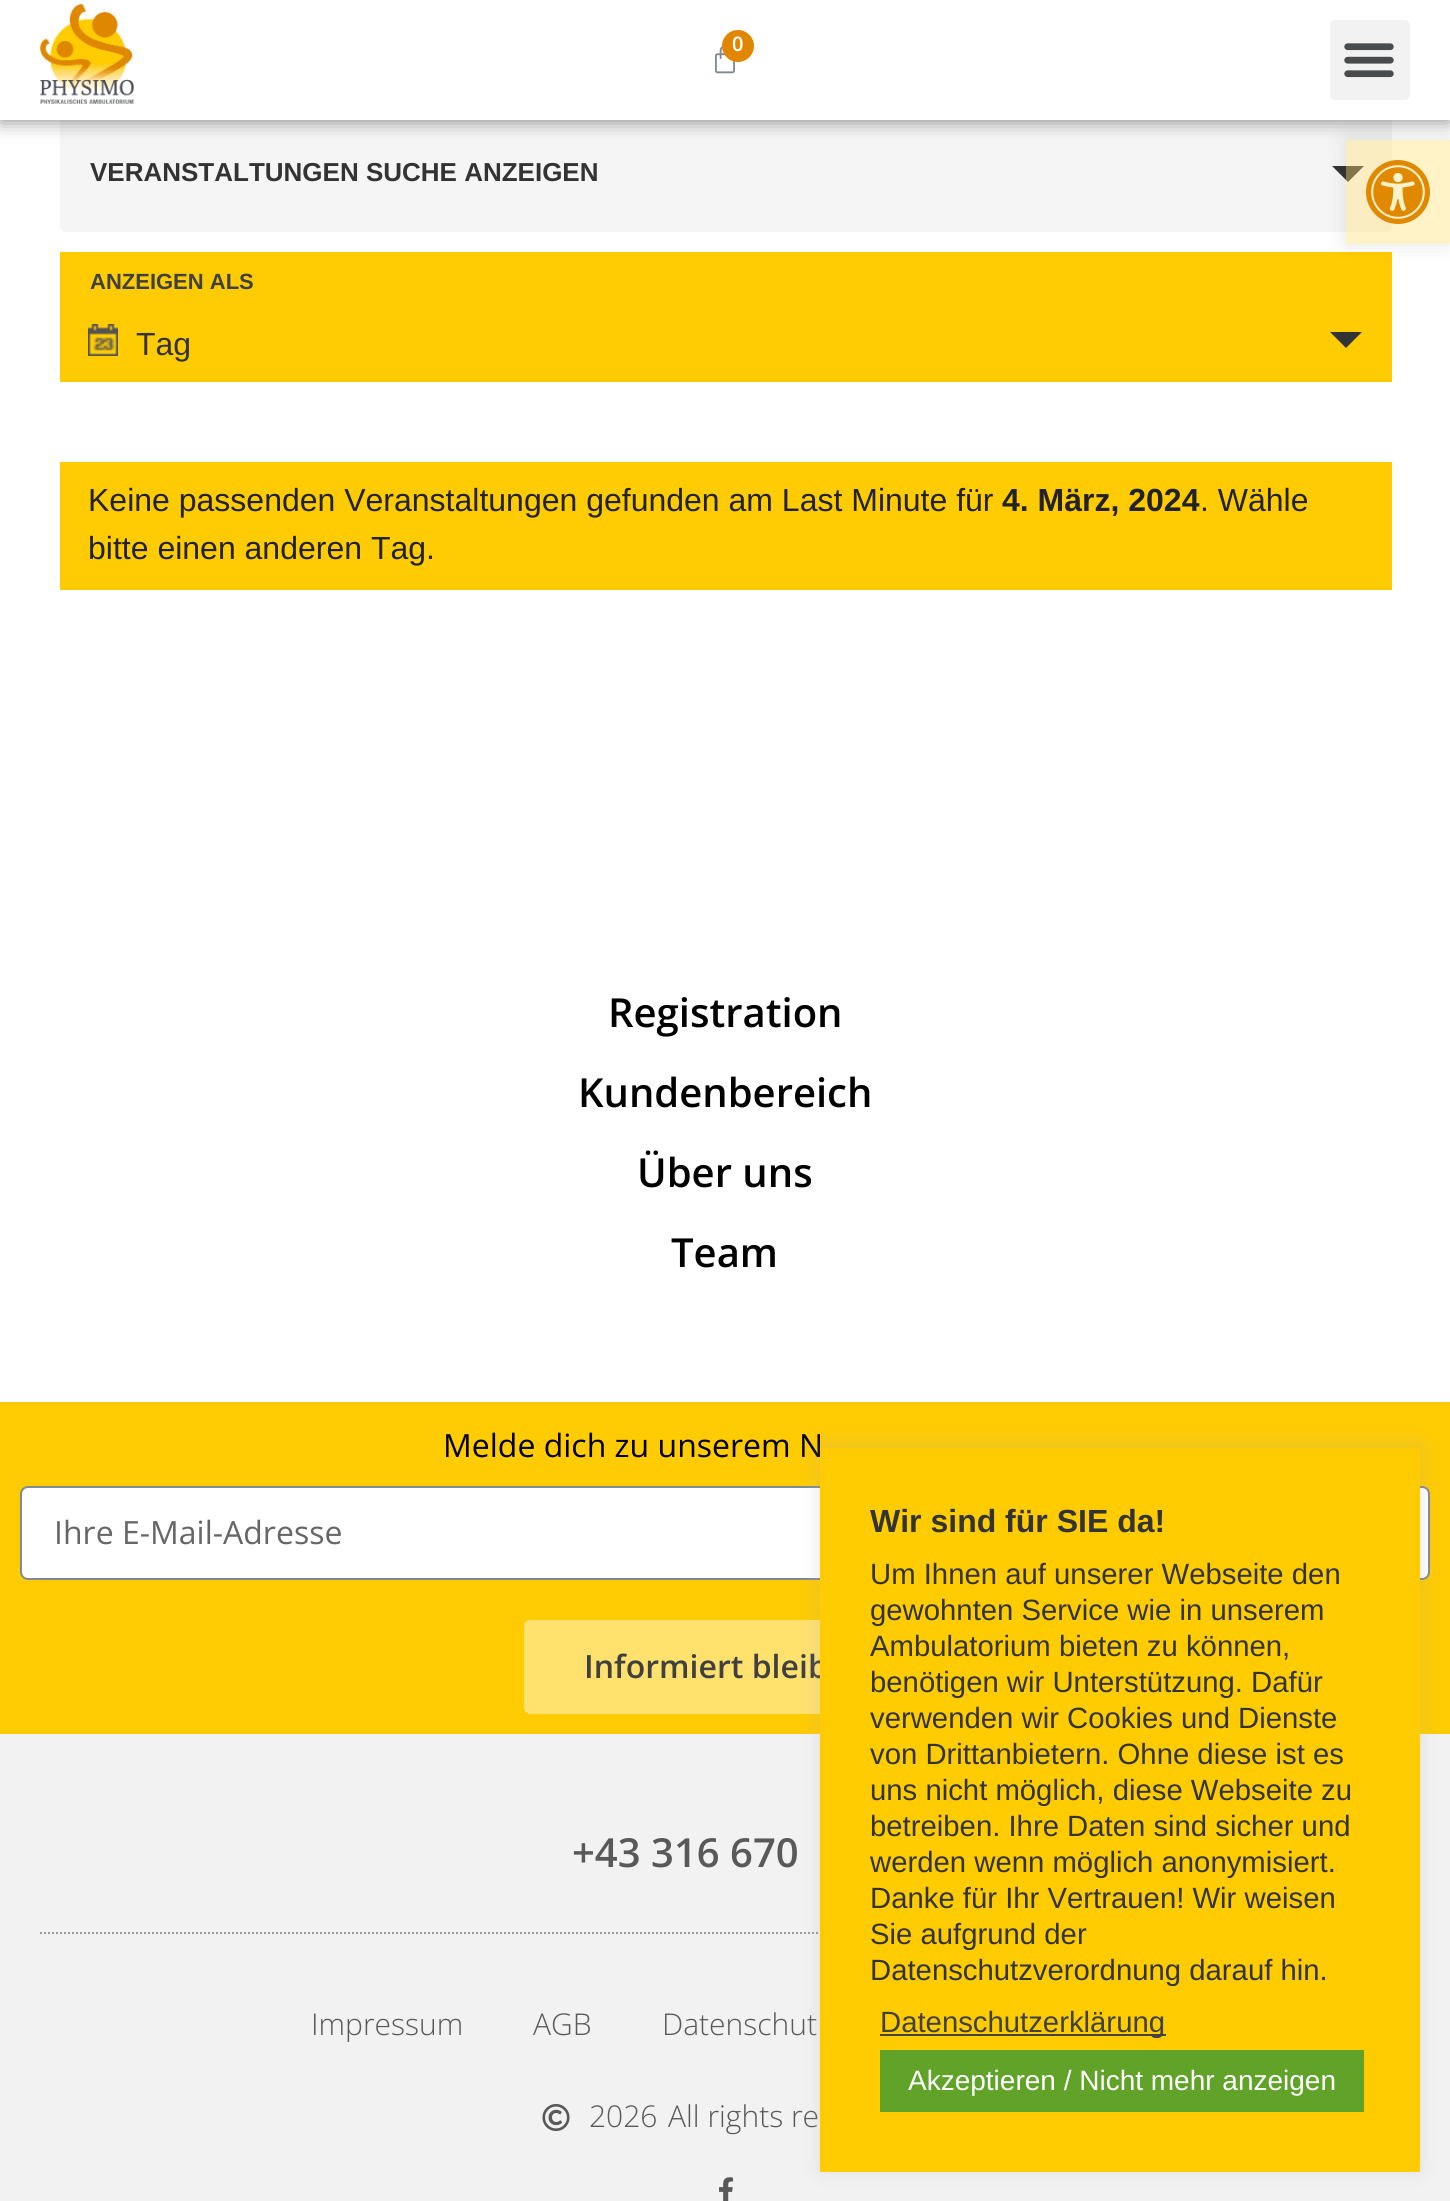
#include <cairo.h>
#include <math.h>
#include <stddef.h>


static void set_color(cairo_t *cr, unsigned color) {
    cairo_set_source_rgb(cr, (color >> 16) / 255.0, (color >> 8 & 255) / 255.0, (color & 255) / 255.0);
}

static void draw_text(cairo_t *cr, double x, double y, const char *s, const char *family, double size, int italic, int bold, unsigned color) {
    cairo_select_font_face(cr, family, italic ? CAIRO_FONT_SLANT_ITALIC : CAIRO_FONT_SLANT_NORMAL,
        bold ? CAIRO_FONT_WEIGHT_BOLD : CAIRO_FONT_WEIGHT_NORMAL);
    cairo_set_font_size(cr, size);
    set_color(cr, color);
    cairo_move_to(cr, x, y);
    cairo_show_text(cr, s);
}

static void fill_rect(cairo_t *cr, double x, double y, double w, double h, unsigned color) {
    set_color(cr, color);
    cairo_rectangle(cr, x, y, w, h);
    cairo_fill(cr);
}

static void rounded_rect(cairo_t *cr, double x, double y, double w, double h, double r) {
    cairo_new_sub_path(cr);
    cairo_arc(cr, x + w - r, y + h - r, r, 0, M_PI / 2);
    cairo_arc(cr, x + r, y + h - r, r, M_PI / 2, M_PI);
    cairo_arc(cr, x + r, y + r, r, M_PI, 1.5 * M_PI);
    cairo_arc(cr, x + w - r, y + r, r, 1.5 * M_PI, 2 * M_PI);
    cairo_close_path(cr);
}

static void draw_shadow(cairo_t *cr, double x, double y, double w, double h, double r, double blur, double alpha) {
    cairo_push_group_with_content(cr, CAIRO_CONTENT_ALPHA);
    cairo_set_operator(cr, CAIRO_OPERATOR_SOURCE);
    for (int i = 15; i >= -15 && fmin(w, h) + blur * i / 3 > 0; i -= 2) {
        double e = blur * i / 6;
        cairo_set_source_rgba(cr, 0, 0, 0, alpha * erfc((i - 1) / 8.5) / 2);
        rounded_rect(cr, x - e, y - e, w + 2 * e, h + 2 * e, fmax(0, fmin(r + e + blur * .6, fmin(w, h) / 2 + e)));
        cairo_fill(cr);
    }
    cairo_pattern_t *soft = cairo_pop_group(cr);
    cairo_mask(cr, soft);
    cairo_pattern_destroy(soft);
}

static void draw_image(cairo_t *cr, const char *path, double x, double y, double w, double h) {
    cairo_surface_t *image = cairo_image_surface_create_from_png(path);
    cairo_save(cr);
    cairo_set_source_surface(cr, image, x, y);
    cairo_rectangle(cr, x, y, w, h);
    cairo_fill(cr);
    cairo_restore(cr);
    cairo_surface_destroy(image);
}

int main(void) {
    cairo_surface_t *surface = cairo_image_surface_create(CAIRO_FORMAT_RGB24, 1450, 2201);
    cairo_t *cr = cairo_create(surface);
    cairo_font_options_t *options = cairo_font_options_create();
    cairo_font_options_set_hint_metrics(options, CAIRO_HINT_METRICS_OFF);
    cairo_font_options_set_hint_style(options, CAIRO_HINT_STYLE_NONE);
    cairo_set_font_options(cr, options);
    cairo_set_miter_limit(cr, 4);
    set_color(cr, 0xFFFFFF);
    cairo_paint(cr);
    set_color(cr, 0xF5F5F5);
    rounded_rect(cr, 60, 116, 1332, 116, 6);
    cairo_fill(cr);
    set_color(cr, 0x333333);
    cairo_new_path(cr);
    cairo_move_to(cr, 1332, 166);
    cairo_line_to(cr, 1364, 166);
    cairo_line_to(cr, 1348, 182);
    cairo_close_path(cr);
    cairo_fill(cr);
    fill_rect(cr, 60, 252, 1332, 130, 0xFFCB02);
    cairo_save(cr);
    cairo_set_fill_rule(cr, CAIRO_FILL_RULE_EVEN_ODD);
    cairo_new_path(cr);
    cairo_move_to(cr, 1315, 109);
    cairo_line_to(cr, 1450, 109);
    cairo_line_to(cr, 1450, 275);
    cairo_line_to(cr, 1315, 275);
    cairo_close_path(cr);
    cairo_move_to(cr, 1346, 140);
    cairo_line_to(cr, 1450, 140);
    cairo_line_to(cr, 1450, 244);
    cairo_line_to(cr, 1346, 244);
    cairo_close_path(cr);
    cairo_clip(cr);
    set_color(cr, 0x000000);
    draw_shadow(cr, 1346, 140, 104, 104, 0, 10, 0.1);
    cairo_restore(cr);
    cairo_set_source_rgba(cr, 1, 0.882, 0.427, 0.38);
    cairo_rectangle(cr, 1346, 140, 104, 104);
    cairo_fill(cr);
    set_color(cr, 0x000000);
    draw_shadow(cr, 0, 0, 1450, 120, 0, 10, 0.5);
    fill_rect(cr, 0, 0, 1450, 120, 0xFFFFFF);
    draw_image(cr, "assets/img1.png", 40, 4, 94, 100);
    draw_image(cr, "assets/img2.png", 715, 45, 20, 29);
    set_color(cr, 0xE08600);
    cairo_arc(cr, 738, 46, 16, 0, 2 * M_PI);
    cairo_fill(cr);
    draw_text(cr, 732, 51, "0", "Open Sans SemiBold", 20, 0, 0, 0xFFFFFF);
    set_color(cr, 0xF2F2F2);
    rounded_rect(cr, 1330, 20, 80, 80, 6);
    cairo_fill(cr);
    draw_image(cr, "assets/img3.png", 1344, 43, 50, 35);
    draw_text(cr, 90, 181, "VERANSTALTUNGEN SUCHE ANZEIGEN", "Liberation Sans", 26, 0, 1, 0x333333);
    draw_text(cr, 90, 289, "ANZEIGEN ALS", "Liberation Sans", 22, 0, 1, 0x404040);
    draw_image(cr, "assets/img4.png", 88, 324, 30, 32);
    draw_text(cr, 136, 355, "Tag", "Liberation Sans", 32, 0, 0, 0x333333);
    cairo_new_path(cr);
    cairo_move_to(cr, 1330, 332);
    cairo_line_to(cr, 1362, 332);
    cairo_line_to(cr, 1346, 348);
    cairo_close_path(cr);
    cairo_fill(cr);
    fill_rect(cr, 60, 462, 1332, 128, 0xFFCB02);
    draw_text(cr, 88, 511, "Keine passenden Veranstaltungen gefunden am Last Minute für", "Liberation Sans", 32, 0, 0, 0x222222);
    draw_text(cr, 1002, 511, "4. März, 2024", "Liberation Sans", 32, 0, 1, 0x222222);
    draw_text(cr, 1200, 511, ". Wähle", "Liberation Sans", 32, 0, 0, 0x222222);
    draw_text(cr, 88, 559, "bitte einen anderen Tag.", "Liberation Sans", 32, 0, 0, 0x222222);
    draw_image(cr, "assets/img5.png", 1366, 160, 64, 64);
    draw_text(cr, 608, 1027, "Registration", "Open Sans SemiBold", 40, 0, 0, 0x000000);
    draw_text(cr, 578, 1107, "Kundenbereich", "Open Sans SemiBold", 40, 0, 0, 0x000000);
    draw_text(cr, 637, 1187, "Über uns", "Open Sans SemiBold", 40, 0, 0, 0x000000);
    draw_text(cr, 671, 1267, "Team", "Open Sans SemiBold", 40, 0, 0, 0x000000);
    fill_rect(cr, 0, 1402, 1450, 332, 0xFFCB02);
    draw_text(cr, 443, 1457, "Melde dich zu unserem N", "Open Sans", 32, 0, 0, 0x000000);
    set_color(cr, 0xFFFFFF);
    rounded_rect(cr, 21, 1487, 1408, 92, 7);
    cairo_fill_preserve(cr);
    set_color(cr, 0x818A91);
    cairo_stroke(cr);
    draw_text(cr, 54, 1544, "Ihre E-Mail-Adresse", "Open Sans", 32, 0, 0, 0x666666);
    set_color(cr, 0xFFE16D);
    rounded_rect(cr, 524, 1620, 402, 94, 6);
    cairo_fill(cr);
    draw_text(cr, 584, 1678, "Informiert bleib", "Open Sans SemiBold", 32, 0, 0, 0x404040);
    fill_rect(cr, 0, 1734, 1450, 467, 0xF2F2F2);
    cairo_new_path(cr);
    cairo_move_to(cr, 40, 1933);
    cairo_line_to(cr, 1410, 1933);
    set_color(cr, 0x9B9B9B);
    cairo_set_dash(cr, (double[]){2, 2}, 2, 0);
    cairo_stroke(cr);
    draw_text(cr, 572, 1867, "+43 316 670", "Open Sans SemiBold", 40, 0, 0, 0x595959);
    draw_text(cr, 311, 2035, "Impressum", "Open Sans Light", 30, 0, 0, 0x595959);
    draw_text(cr, 533, 2035, "AGB", "Open Sans Light", 30, 0, 0, 0x595959);
    draw_text(cr, 662, 2035, "Datenschut", "Open Sans Light", 30, 0, 0, 0x595959);
    draw_image(cr, "assets/img6.png", 542, 2104, 28, 27);
    draw_text(cr, 589, 2127, "2026", "Open Sans Light", 30, 0, 0, 0x595959);
    draw_text(cr, 668, 2127, "All rights re", "Open Sans Light", 30, 0, 0, 0x595959);
    draw_image(cr, "assets/img7.png", 719, 2177, 14, 24);
    set_color(cr, 0xACABAB);
    draw_shadow(cr, 820, 1446, 600, 724, 0, 10, 0.3);
    fill_rect(cr, 820, 1448, 600, 724, 0xFECC00);
    draw_text(cr, 870, 1532, "Wir sind für SIE da!", "Liberation Sans", 32, 0, 1, 0x333333);
    draw_text(cr, 870, 1584, "Um Ihnen auf unserer Webseite den", "Liberation Sans", 29.3, 0, 0, 0x333333);
    draw_text(cr, 870, 1620, "gewohnten Service wie in unserem", "Liberation Sans", 29.3, 0, 0, 0x333333);
    draw_text(cr, 870, 1656, "Ambulatorium bieten zu können,", "Liberation Sans", 29.3, 0, 0, 0x333333);
    draw_text(cr, 870, 1692, "benötigen wir Unterstützung. Dafür", "Liberation Sans", 29.3, 0, 0, 0x333333);
    draw_text(cr, 870, 1728, "verwenden wir Cookies und Dienste", "Liberation Sans", 29.3, 0, 0, 0x333333);
    draw_text(cr, 870, 1764, "von Drittanbietern. Ohne diese ist es", "Liberation Sans", 29.3, 0, 0, 0x333333);
    draw_text(cr, 870, 1800, "uns nicht möglich, diese Webseite zu", "Liberation Sans", 29.3, 0, 0, 0x333333);
    draw_text(cr, 870, 1836, "betreiben. Ihre Daten sind sicher und", "Liberation Sans", 29.3, 0, 0, 0x333333);
    draw_text(cr, 870, 1872, "werden wenn möglich anonymisiert.", "Liberation Sans", 29.3, 0, 0, 0x333333);
    draw_text(cr, 870, 1908, "Danke für Ihr Vertrauen! Wir weisen", "Liberation Sans", 29.3, 0, 0, 0x333333);
    draw_text(cr, 870, 1944, "Sie aufgrund der", "Liberation Sans", 29.3, 0, 0, 0x333333);
    draw_text(cr, 870, 1980, "Datenschutzverordnung darauf hin.", "Liberation Sans", 29.3, 0, 0, 0x333333);
    fill_rect(cr, 880, 2034, 286, 2, 0x444444);
    draw_text(cr, 880, 2032, "Datenschutzerklärung", "Liberation Sans", 29.3, 0, 0, 0x404040);
    fill_rect(cr, 880, 2050, 484, 62, 0x61A229);
    draw_text(cr, 908, 2090, "Akzeptieren / Nicht mehr anzeigen", "Liberation Sans", 28, 0, 0, 0xFFFFFF);
    cairo_surface_write_to_png(surface, "output.png");
    cairo_font_options_destroy(options);
    cairo_destroy(cr);
    cairo_surface_destroy(surface);
    return 0;
}
